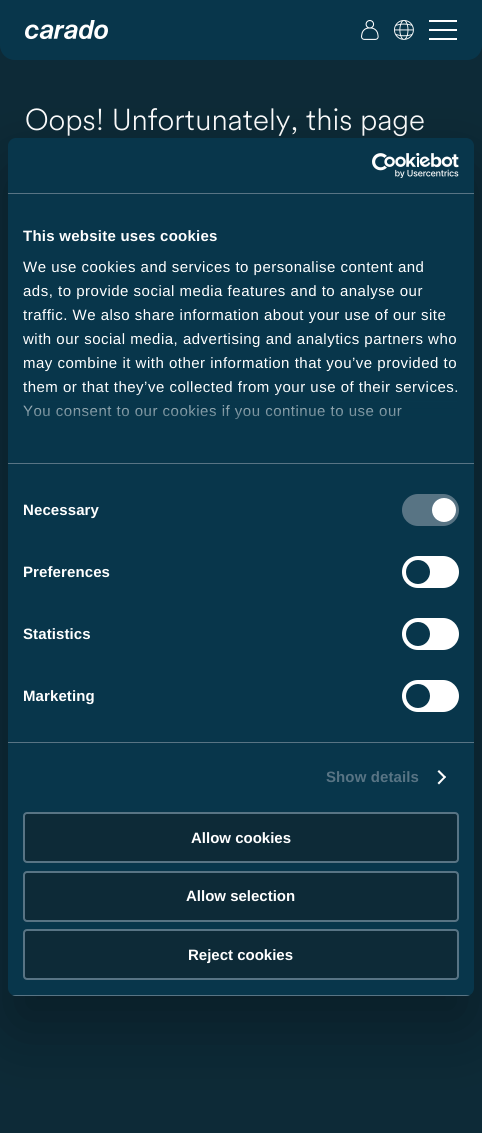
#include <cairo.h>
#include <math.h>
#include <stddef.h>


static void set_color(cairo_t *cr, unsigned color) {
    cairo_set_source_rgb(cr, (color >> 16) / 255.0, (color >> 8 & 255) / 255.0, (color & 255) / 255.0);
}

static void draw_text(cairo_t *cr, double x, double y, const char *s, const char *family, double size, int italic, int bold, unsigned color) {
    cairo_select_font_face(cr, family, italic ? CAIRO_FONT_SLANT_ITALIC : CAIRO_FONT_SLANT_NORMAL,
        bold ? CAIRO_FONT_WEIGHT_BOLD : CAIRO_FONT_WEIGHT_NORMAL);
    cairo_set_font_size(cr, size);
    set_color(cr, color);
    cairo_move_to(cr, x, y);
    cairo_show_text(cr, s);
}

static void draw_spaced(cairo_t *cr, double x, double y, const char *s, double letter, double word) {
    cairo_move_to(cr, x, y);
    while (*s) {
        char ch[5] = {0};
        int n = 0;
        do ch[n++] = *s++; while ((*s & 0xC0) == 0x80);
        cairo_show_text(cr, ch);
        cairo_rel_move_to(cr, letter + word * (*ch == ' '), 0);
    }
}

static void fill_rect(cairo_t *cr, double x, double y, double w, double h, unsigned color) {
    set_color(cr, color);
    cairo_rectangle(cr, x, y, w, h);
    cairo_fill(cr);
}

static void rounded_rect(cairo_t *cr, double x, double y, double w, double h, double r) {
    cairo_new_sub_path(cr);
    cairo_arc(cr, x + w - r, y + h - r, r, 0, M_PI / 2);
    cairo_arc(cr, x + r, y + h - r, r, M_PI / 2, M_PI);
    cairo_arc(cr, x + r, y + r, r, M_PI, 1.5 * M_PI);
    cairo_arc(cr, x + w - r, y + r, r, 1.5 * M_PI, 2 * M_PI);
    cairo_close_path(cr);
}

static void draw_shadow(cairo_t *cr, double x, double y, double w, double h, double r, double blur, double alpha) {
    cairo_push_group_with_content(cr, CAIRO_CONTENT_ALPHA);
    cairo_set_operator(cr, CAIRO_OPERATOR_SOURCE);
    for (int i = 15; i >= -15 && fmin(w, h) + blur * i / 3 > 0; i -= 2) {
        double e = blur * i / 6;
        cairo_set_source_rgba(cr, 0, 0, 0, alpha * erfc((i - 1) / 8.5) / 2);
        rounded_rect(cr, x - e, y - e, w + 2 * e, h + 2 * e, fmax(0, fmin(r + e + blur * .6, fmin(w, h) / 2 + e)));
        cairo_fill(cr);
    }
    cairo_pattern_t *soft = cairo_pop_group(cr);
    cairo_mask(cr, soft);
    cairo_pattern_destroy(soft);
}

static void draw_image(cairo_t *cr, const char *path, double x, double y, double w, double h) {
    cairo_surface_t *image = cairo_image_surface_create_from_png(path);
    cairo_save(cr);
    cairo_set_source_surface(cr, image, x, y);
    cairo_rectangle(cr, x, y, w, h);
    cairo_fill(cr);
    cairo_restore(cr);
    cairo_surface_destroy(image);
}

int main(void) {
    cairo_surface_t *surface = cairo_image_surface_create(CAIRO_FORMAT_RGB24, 482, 1133);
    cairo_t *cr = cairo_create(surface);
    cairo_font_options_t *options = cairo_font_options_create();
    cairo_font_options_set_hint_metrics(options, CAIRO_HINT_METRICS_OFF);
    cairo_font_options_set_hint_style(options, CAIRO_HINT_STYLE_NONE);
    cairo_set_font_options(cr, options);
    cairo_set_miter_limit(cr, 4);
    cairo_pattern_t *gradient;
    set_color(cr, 0x0D2A37);
    cairo_paint(cr);
    set_color(cr, 0x08364B);
    cairo_new_path(cr);
    cairo_move_to(cr, 0, 0);
    cairo_line_to(cr, 482, 0);
    cairo_line_to(cr, 482, 45);
    cairo_curve_to(cr, 482, 53.5, 475.5, 60, 467, 60);
    cairo_line_to(cr, 15, 60);
    cairo_curve_to(cr, 6.5, 60, 0, 53.5, 0, 45);
    cairo_close_path(cr);
    cairo_fill(cr);
    draw_image(cr, "assets/img1.png", 25, 20, 83, 20);
    draw_image(cr, "assets/img2.png", 361, 20, 18, 20);
    draw_image(cr, "assets/img3.png", 394, 20, 20, 20);
    fill_rect(cr, 429, 20, 28, 2, 0xFFFFFF);
    fill_rect(cr, 429, 29, 28, 2, 0xFFFFFF);
    fill_rect(cr, 429, 38, 28, 2, 0xFFFFFF);
    draw_text(cr, 25, 130, "Oops! Unfortunately, this page", "Circular Light", 30, 0, 0, 0xFFFFFF);
    set_color(cr, 0x000000);
    draw_shadow(cr, 8, 170, 466, 858, 8, 34, 0.3);
    set_color(cr, 0x08364B);
    rounded_rect(cr, 8, 138, 466, 858, 8);
    cairo_fill(cr);
    fill_rect(cr, 8, 193, 466, 1, 0x587484);
    draw_image(cr, "assets/img4.png", 372, 153, 87, 25);
    fill_rect(cr, 8, 463, 466, 1, 0x587484);
    cairo_select_font_face(cr, "Liberation Sans", CAIRO_FONT_SLANT_NORMAL, CAIRO_FONT_WEIGHT_BOLD);
    cairo_set_font_size(cr, 15);
    set_color(cr, 0xFFFFFF);
    draw_spaced(cr, 23, 241, "This website uses cookies", 0.25, 0);
    cairo_select_font_face(cr, "Liberation Sans", CAIRO_FONT_SLANT_NORMAL, CAIRO_FONT_WEIGHT_NORMAL);
    draw_spaced(cr, 23, 272, "We use cookies and services to personalise content and", 0.5, 0);
    draw_spaced(cr, 23, 296, "ads, to provide social media features and to analyse our", 0.5, 0);
    draw_spaced(cr, 23, 320, "traffic. We also share information about your use of our site", 0.5, 0);
    draw_spaced(cr, 23, 344, "with our social media, advertising and analytics partners who", 0.5, 0);
    draw_spaced(cr, 23, 368, "may combine it with other information that you’ve provided to", 0.5, 0);
    draw_spaced(cr, 23, 392, "them or that they’ve collected from your use of their services.", 0.5, 0);
    draw_spaced(cr, 23, 416, "You consent to our cookies if you continue to use our", 0.5, 0);
    gradient = cairo_pattern_create_linear(235, 463, 235, 388);
    cairo_pattern_add_color_stop_rgba(gradient, 0, 0.031, 0.212, 0.294, 1);
    cairo_pattern_add_color_stop_rgba(gradient, 0.5, 0.031, 0.212, 0.294, 0.8);
    cairo_pattern_add_color_stop_rgba(gradient, 1, 0.031, 0.212, 0.294, 0);
    cairo_set_source(cr, gradient);
    cairo_pattern_destroy(gradient);
    cairo_rectangle(cr, 23, 389, 434, 31);
    cairo_fill(cr);
    fill_rect(cr, 8, 742, 466, 1, 0x587484);
    cairo_select_font_face(cr, "Liberation Sans", CAIRO_FONT_SLANT_NORMAL, CAIRO_FONT_WEIGHT_BOLD);
    set_color(cr, 0xFFFFFF);
    draw_spaced(cr, 23, 515, "Necessary", 0.1, 0);
    set_color(cr, 0x587484);
    rounded_rect(cr, 402, 494, 57, 32, 16);
    cairo_fill(cr);
    set_color(cr, 0xFFFFFF);
    cairo_arc(cr, 444, 510, 12, 0, 2 * M_PI);
    cairo_fill(cr);
    draw_spaced(cr, 23, 577, "Preferences", 0.1, 0);
    rounded_rect(cr, 402, 556, 57, 32, 16);
    cairo_fill(cr);
    set_color(cr, 0x08364B);
    cairo_arc(cr, 418, 572, 12, 0, 2 * M_PI);
    cairo_fill(cr);
    set_color(cr, 0xFFFFFF);
    draw_spaced(cr, 23, 639, "Statistics", 0.1, 0);
    rounded_rect(cr, 402, 618, 57, 32, 16);
    cairo_fill(cr);
    set_color(cr, 0x08364B);
    cairo_arc(cr, 418, 634, 12, 0, 2 * M_PI);
    cairo_fill(cr);
    set_color(cr, 0xFFFFFF);
    draw_spaced(cr, 23, 701, "Marketing", 0.1, 0);
    rounded_rect(cr, 402, 680, 57, 32, 16);
    cairo_fill(cr);
    set_color(cr, 0x08364B);
    cairo_arc(cr, 418, 696, 12, 0, 2 * M_PI);
    cairo_fill(cr);
    set_color(cr, 0x587484);
    draw_spaced(cr, 326, 782, "Show details", 0.1, 0);
    set_color(cr, 0xFFFFFF);
    cairo_new_path(cr);
    cairo_move_to(cr, 439, 770);
    cairo_line_to(cr, 446, 777);
    cairo_line_to(cr, 444.5, 778.5);
    cairo_line_to(cr, 437.5, 771.5);
    cairo_close_path(cr);
    cairo_fill(cr);
    cairo_new_path(cr);
    cairo_move_to(cr, 444.5, 776);
    cairo_line_to(cr, 446, 777);
    cairo_line_to(cr, 439, 784.5);
    cairo_line_to(cr, 437.5, 783);
    cairo_close_path(cr);
    cairo_fill(cr);
    cairo_save(cr);
    rounded_rect(cr, 8, 138, 466, 858, 8);
    cairo_clip(cr);
    fill_rect(cr, 8, 995, 466, 1, 0x587484);
    cairo_restore(cr);
    set_color(cr, 0x0D2A37);
    rounded_rect(cr, 24, 813, 434, 49, 3);
    cairo_fill_preserve(cr);
    set_color(cr, 0x587484);
    cairo_stroke(cr);
    draw_text(cr, 191, 843, "Allow cookies", "Liberation Sans", 15, 0, 1, 0xFFFFFF);
    set_color(cr, 0x0D2A37);
    rounded_rect(cr, 24, 872, 434, 49, 3);
    cairo_fill_preserve(cr);
    set_color(cr, 0x587484);
    cairo_stroke(cr);
    draw_text(cr, 186, 901, "Allow selection", "Liberation Sans", 15, 0, 1, 0xFFFFFF);
    set_color(cr, 0x0D2A37);
    rounded_rect(cr, 24, 930, 434, 49, 3);
    cairo_fill_preserve(cr);
    set_color(cr, 0x587484);
    cairo_stroke(cr);
    draw_text(cr, 188, 960, "Reject cookies", "Liberation Sans", 15, 0, 1, 0xFFFFFF);
    cairo_surface_write_to_png(surface, "output.png");
    cairo_font_options_destroy(options);
    cairo_destroy(cr);
    cairo_surface_destroy(surface);
    return 0;
}
